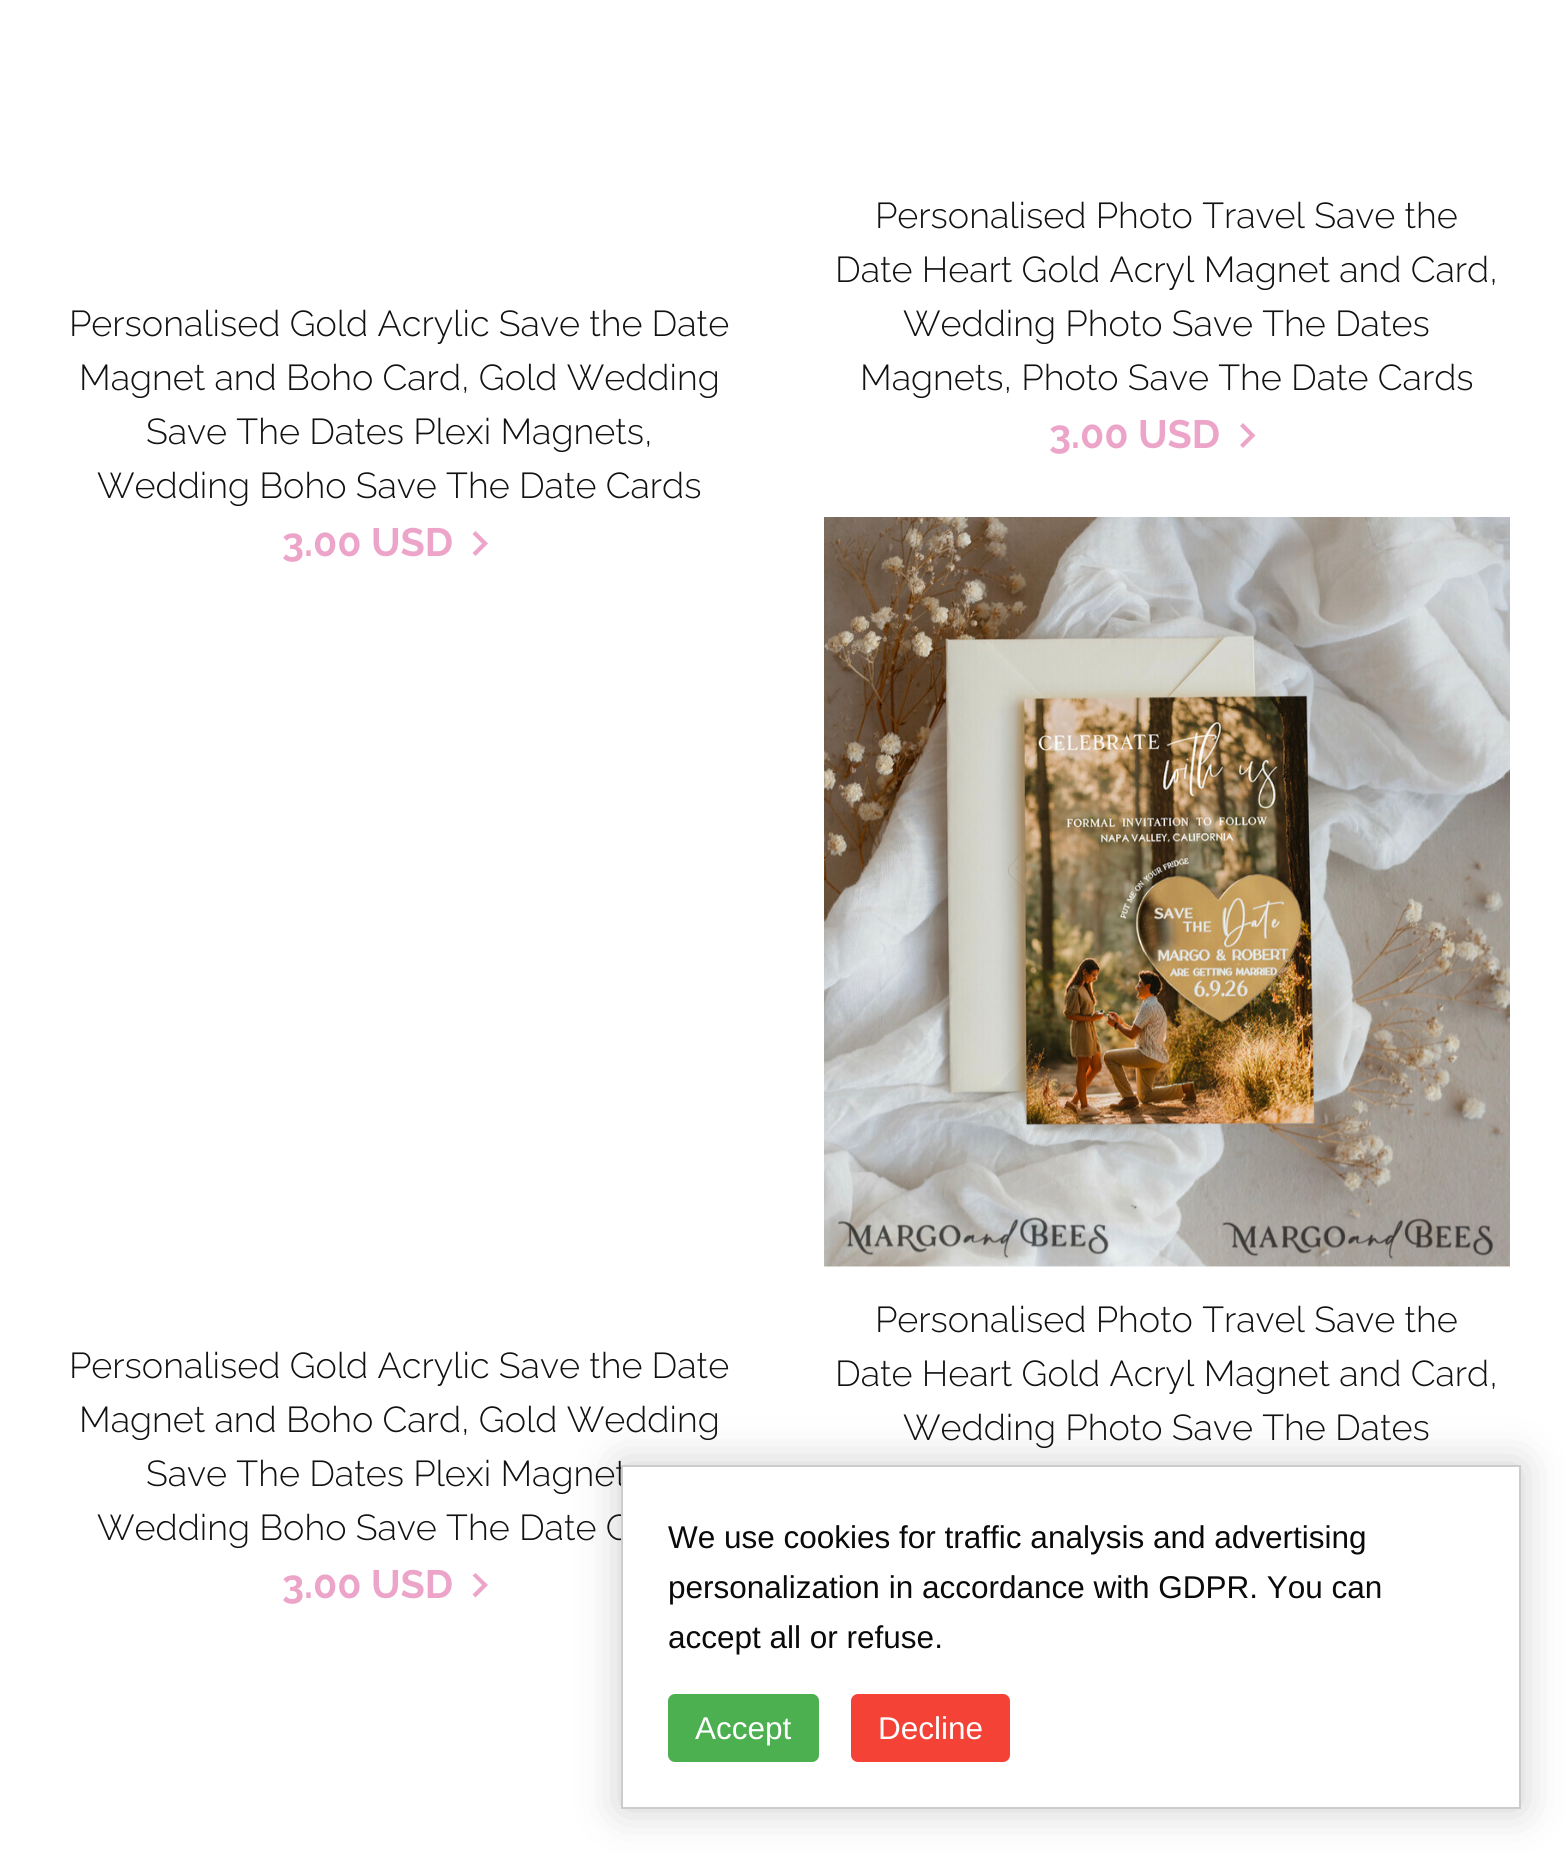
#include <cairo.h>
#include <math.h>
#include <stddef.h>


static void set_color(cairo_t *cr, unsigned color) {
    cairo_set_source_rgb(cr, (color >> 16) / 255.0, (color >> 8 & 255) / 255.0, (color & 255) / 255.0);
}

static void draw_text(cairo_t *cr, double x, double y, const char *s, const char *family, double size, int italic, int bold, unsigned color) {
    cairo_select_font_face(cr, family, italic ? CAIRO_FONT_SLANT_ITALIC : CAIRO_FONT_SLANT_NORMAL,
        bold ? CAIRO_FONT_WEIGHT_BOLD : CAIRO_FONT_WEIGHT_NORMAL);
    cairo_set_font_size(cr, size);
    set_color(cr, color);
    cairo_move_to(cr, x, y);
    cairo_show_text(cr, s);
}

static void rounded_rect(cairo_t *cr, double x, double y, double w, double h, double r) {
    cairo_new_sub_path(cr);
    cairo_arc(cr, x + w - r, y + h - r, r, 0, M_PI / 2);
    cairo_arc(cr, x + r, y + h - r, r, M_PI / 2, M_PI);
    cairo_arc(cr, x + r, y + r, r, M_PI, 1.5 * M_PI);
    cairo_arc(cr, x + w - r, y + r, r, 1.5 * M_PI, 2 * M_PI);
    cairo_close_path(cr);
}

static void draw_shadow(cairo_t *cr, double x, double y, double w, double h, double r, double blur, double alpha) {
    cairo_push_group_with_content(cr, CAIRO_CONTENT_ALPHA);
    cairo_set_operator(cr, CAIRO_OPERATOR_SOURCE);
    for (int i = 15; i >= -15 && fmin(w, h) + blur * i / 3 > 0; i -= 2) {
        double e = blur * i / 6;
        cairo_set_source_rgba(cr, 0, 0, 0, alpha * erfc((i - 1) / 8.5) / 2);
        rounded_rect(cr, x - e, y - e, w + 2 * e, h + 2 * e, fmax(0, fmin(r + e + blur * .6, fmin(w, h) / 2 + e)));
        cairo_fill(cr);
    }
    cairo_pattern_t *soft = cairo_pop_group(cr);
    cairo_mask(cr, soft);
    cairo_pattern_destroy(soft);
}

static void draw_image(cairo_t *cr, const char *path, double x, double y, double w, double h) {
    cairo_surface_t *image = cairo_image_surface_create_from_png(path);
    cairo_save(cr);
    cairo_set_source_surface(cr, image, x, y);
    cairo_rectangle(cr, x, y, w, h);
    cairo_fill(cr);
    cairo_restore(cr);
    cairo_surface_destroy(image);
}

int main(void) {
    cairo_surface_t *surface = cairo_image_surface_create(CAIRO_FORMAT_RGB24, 1565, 1853);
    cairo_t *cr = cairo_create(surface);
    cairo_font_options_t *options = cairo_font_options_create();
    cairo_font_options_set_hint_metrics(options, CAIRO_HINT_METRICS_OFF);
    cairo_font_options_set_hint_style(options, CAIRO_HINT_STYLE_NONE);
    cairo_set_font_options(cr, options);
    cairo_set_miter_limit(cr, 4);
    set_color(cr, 0xFFFFFF);
    cairo_paint(cr);
    draw_text(cr, 69, 336, "Personalised Gold Acrylic Save the Date", "Raleway Light", 36, 0, 0, 0x121212);
    draw_text(cr, 79, 390, "Magnet and Boho Card, Gold Wedding", "Raleway Light", 36, 0, 0, 0x121212);
    draw_text(cr, 146, 444, "Save The Dates Plexi Magnets,", "Raleway Light", 36, 0, 0, 0x121212);
    draw_text(cr, 97, 498, "Wedding Boho Save The Date Cards", "Raleway Light", 36, 0, 0, 0x121212);
    draw_text(cr, 282, 556, "3.00 USD", "Raleway", 39.5, 0, 1, 0xECA5C9);
    cairo_new_path(cr);
    cairo_move_to(cr, 475.5, 531);
    cairo_line_to(cr, 472.5, 534);
    cairo_line_to(cr, 482, 543.5);
    cairo_line_to(cr, 472.5, 553);
    cairo_line_to(cr, 475.5, 556);
    cairo_line_to(cr, 488, 543.5);
    cairo_close_path(cr);
    cairo_fill(cr);
    draw_text(cr, 875, 228, "Personalised Photo Travel Save the", "Raleway Light", 36, 0, 0, 0x121212);
    draw_text(cr, 835, 282, "Date Heart Gold Acryl Magnet and Card,", "Raleway Light", 36, 0, 0, 0x121212);
    draw_text(cr, 903, 336, "Wedding Photo Save The Dates", "Raleway Light", 36, 0, 0, 0x121212);
    draw_text(cr, 860, 390, "Magnets, Photo Save The Date Cards", "Raleway Light", 36, 0, 0, 0x121212);
    draw_text(cr, 1049, 448, "3.00 USD", "Raleway", 39.5, 0, 1, 0xECA5C9);
    cairo_new_path(cr);
    cairo_move_to(cr, 1243, 423);
    cairo_line_to(cr, 1240, 426);
    cairo_line_to(cr, 1249.5, 435.5);
    cairo_line_to(cr, 1240, 445);
    cairo_line_to(cr, 1243, 448);
    cairo_line_to(cr, 1255.5, 435.5);
    cairo_close_path(cr);
    cairo_fill(cr);
    draw_text(cr, 69, 1378, "Personalised Gold Acrylic Save the Date", "Raleway Light", 36, 0, 0, 0x121212);
    draw_text(cr, 79, 1432, "Magnet and Boho Card, Gold Wedding", "Raleway Light", 36, 0, 0, 0x121212);
    draw_text(cr, 146, 1486, "Save The Dates Plexi Magnet", "Raleway Light", 36, 0, 0, 0x121212);
    draw_text(cr, 97, 1540, "Wedding Boho Save The Date C", "Raleway Light", 36, 0, 0, 0x121212);
    draw_text(cr, 282, 1598, "3.00 USD", "Raleway", 39.5, 0, 1, 0xECA5C9);
    cairo_new_path(cr);
    cairo_move_to(cr, 475.5, 1573);
    cairo_line_to(cr, 472.5, 1575.5);
    cairo_line_to(cr, 482, 1585);
    cairo_line_to(cr, 472.5, 1594.5);
    cairo_line_to(cr, 475.5, 1597.5);
    cairo_line_to(cr, 488, 1585);
    cairo_close_path(cr);
    cairo_fill(cr);
    draw_image(cr, "assets/img1.png", 824, 517, 686, 750);
    draw_text(cr, 875, 1332, "Personalised Photo Travel Save the", "Raleway Light", 36, 0, 0, 0x121212);
    draw_text(cr, 835, 1386, "Date Heart Gold Acryl Magnet and Card,", "Raleway Light", 36, 0, 0, 0x121212);
    draw_text(cr, 903, 1440, "Wedding Photo Save The Dates", "Raleway Light", 36, 0, 0, 0x121212);
    set_color(cr, 0x000000);
    draw_shadow(cr, 621, 1465, 900, 344, 0, 22.5, 0.2);
    set_color(cr, 0xFFFFFF);
    cairo_rectangle(cr, 622, 1466, 898, 342);
    cairo_fill_preserve(cr);
    set_color(cr, 0xCCCCCC);
    cairo_stroke(cr);
    draw_text(cr, 668, 1548, "We use cookies for traffic analysis and advertising", "Liberation Sans", 31.5, 0, 0, 0x0A0A0A);
    draw_text(cr, 668, 1598, "personalization in accordance with GDPR. You can", "Liberation Sans", 31.5, 0, 0, 0x0A0A0A);
    draw_text(cr, 668, 1648, "accept all or refuse.", "Liberation Sans", 31.5, 0, 0, 0x0A0A0A);
    set_color(cr, 0x4CAF50);
    rounded_rect(cr, 668, 1694, 151, 68, 7);
    cairo_fill(cr);
    draw_text(cr, 695, 1739, "Accept", "Liberation Sans", 31.5, 0, 0, 0xFFFFFF);
    set_color(cr, 0xF44336);
    rounded_rect(cr, 851, 1694, 159, 68, 7);
    cairo_fill(cr);
    draw_text(cr, 878, 1739, "Decline", "Liberation Sans", 31.5, 0, 0, 0xFFFFFF);
    cairo_surface_write_to_png(surface, "output.png");
    cairo_font_options_destroy(options);
    cairo_destroy(cr);
    cairo_surface_destroy(surface);
    return 0;
}
